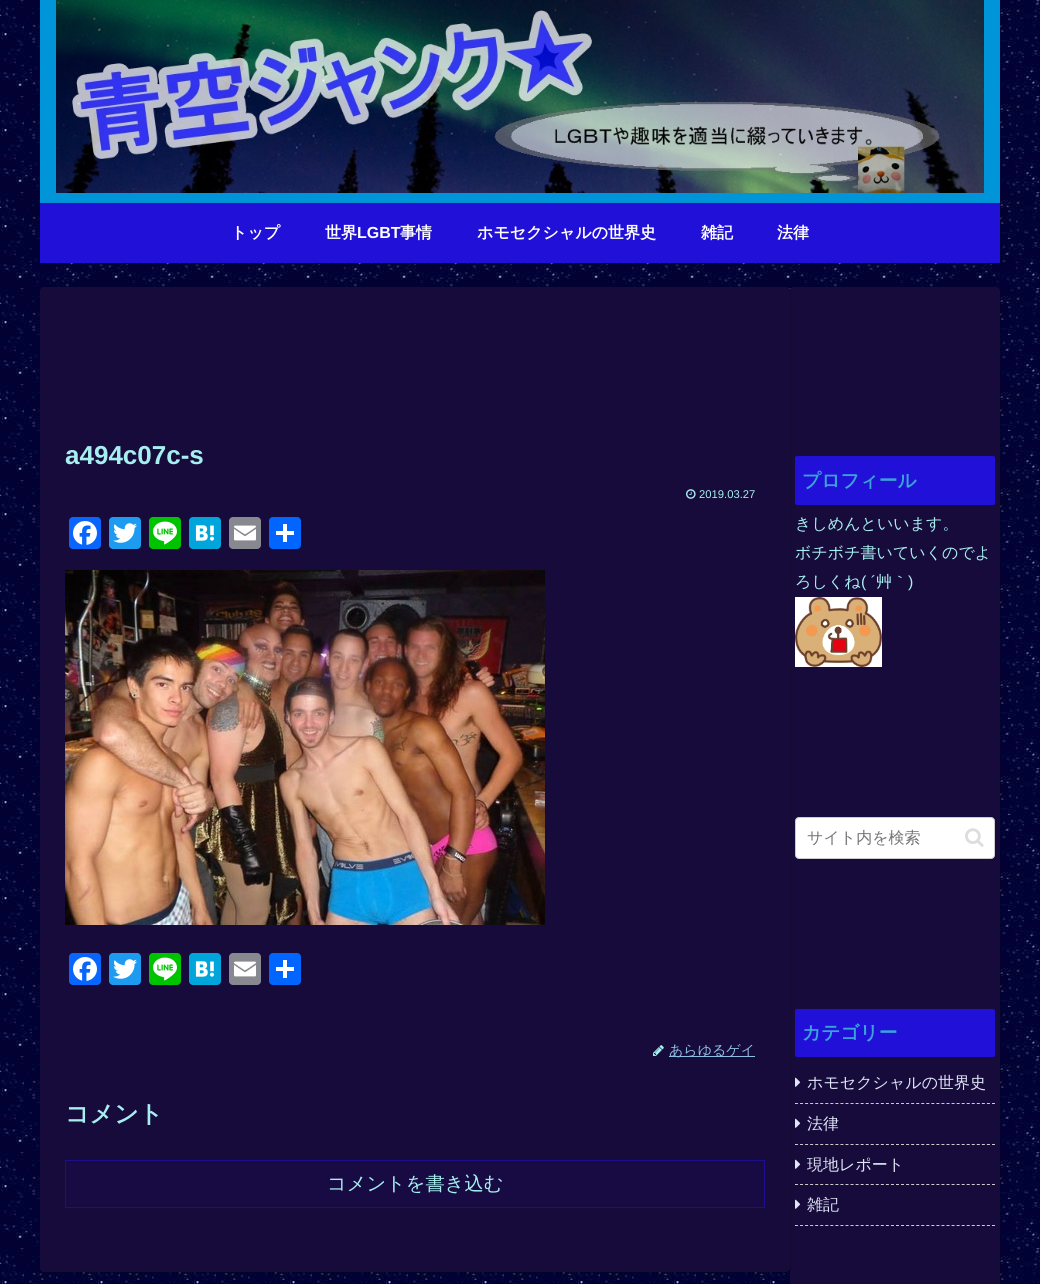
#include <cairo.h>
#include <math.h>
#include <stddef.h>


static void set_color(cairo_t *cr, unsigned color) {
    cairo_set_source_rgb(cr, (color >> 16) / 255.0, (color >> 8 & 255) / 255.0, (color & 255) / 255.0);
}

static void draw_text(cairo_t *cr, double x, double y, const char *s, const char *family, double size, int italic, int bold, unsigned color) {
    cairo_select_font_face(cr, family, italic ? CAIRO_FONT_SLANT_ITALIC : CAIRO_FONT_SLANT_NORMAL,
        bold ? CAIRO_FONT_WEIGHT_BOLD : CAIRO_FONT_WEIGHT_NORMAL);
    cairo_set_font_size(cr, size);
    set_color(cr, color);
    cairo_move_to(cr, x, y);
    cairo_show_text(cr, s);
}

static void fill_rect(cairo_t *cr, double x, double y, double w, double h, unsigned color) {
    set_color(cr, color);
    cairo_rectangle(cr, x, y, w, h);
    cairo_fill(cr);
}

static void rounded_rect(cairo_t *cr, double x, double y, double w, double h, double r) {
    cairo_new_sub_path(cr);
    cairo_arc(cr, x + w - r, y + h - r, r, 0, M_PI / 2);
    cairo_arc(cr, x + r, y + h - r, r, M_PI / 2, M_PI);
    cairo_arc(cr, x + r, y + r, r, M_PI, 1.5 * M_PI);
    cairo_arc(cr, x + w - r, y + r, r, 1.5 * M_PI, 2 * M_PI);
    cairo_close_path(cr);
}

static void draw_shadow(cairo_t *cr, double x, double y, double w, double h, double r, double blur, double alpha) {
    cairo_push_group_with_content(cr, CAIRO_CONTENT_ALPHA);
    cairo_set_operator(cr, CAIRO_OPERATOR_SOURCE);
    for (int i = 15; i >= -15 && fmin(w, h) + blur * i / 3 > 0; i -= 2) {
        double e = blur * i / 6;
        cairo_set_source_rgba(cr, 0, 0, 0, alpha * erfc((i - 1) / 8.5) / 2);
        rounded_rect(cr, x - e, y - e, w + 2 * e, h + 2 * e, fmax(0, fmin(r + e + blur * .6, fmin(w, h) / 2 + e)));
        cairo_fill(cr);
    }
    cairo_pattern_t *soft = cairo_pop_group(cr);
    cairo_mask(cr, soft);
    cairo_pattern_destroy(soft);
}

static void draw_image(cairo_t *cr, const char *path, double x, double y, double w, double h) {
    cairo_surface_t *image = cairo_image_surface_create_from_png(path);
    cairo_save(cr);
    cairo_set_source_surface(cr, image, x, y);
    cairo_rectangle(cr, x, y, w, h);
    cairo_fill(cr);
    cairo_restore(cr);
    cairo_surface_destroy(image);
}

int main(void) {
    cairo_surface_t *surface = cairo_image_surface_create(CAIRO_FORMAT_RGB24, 1040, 1284);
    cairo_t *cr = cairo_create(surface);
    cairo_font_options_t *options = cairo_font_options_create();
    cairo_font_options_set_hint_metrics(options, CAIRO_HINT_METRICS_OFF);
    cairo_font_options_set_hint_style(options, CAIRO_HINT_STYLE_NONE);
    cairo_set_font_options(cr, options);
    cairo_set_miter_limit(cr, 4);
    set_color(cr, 0xFFFFFF);
    cairo_paint(cr);
    draw_image(cr, "assets/img1.png", 0, 0, 1040, 1284);
    fill_rect(cr, 40, 203, 960, 60, 0x2111D8);
    fill_rect(cr, 40, 0, 960, 203, 0x0095D9);
    draw_image(cr, "assets/img2.png", 56, 0, 928, 193);
    cairo_save(cr);
    cairo_set_fill_rule(cr, CAIRO_FILL_RULE_EVEN_ODD);
    cairo_new_path(cr);
    cairo_move_to(cr, 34, 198);
    cairo_line_to(cr, 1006, 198);
    cairo_line_to(cr, 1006, 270);
    cairo_line_to(cr, 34, 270);
    cairo_close_path(cr);
    cairo_move_to(cr, 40, 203);
    cairo_line_to(cr, 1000, 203);
    cairo_line_to(cr, 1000, 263);
    cairo_line_to(cr, 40, 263);
    cairo_close_path(cr);
    cairo_clip(cr);
    set_color(cr, 0x000000);
    draw_shadow(cr, 40, 204, 960, 60, 0, 1.5, 0.25);
    cairo_restore(cr);
    draw_text(cr, 231, 238, "トップ", "WenQuanYi Zen Hei", 16, 0, 1, 0xFFFFFF);
    draw_text(cr, 325, 238, "世界", "WenQuanYi Zen Hei", 16, 0, 1, 0xFFFFFF);
    draw_text(cr, 357, 238, "LGBT", "Liberation Sans", 16, 0, 1, 0xFFFFFF);
    draw_text(cr, 400, 238, "事情", "WenQuanYi Zen Hei", 16, 0, 1, 0xFFFFFF);
    draw_text(cr, 477, 238, "ホモセクシャルの世界史", "WenQuanYi Zen Hei", 16, 0, 1, 0xFFFFFF);
    draw_text(cr, 701, 238, "雑記", "WenQuanYi Zen Hei", 16, 0, 1, 0xFFFFFF);
    draw_text(cr, 777, 238, "法律", "WenQuanYi Zen Hei", 16, 0, 1, 0xFFFFFF);
    rounded_rect(cr, 789.5, 286.5, 211, 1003, 4.5);
    cairo_set_source_rgba(cr, 0, 0, 0, 0.08);
    cairo_set_line_width(cr, 1);
    cairo_stroke(cr);
    set_color(cr, 0x000000);
    draw_shadow(cr, 790, 289, 210, 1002, 4, 1, 0.16);
    set_color(cr, 0x170B3B);
    rounded_rect(cr, 790, 287, 210, 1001, 4);
    cairo_fill(cr);
    rounded_rect(cr, 39.5, 286.5, 751, 986, 4.5);
    cairo_set_source_rgba(cr, 0, 0, 0, 0.08);
    cairo_stroke(cr);
    set_color(cr, 0x000000);
    draw_shadow(cr, 40, 289, 750, 985, 4, 1, 0.16);
    set_color(cr, 0x170B3B);
    rounded_rect(cr, 40, 287, 750, 985, 4);
    cairo_fill(cr);
    draw_text(cr, 65, 464, "a494c07c-s", "Liberation Sans", 26, 0, 1, 0xA7EFEF);
    draw_image(cr, "assets/img3.png", 686, 489, 10, 10);
    draw_text(cr, 699, 498, "2019.03.27", "Liberation Sans", 11.25, 0, 0, 0xA7EFEF);
    set_color(cr, 0x0866FF);
    rounded_rect(cr, 69, 517, 32, 32, 4);
    cairo_fill(cr);
    draw_image(cr, "assets/img4.png", 73, 521, 24, 24);
    set_color(cr, 0x1D9BF0);
    rounded_rect(cr, 109, 517, 32, 32, 4);
    cairo_fill(cr);
    draw_image(cr, "assets/img5.png", 113, 523, 24, 20);
    set_color(cr, 0x00C300);
    rounded_rect(cr, 149, 517, 32, 32, 4);
    cairo_fill(cr);
    draw_image(cr, "assets/img6.png", 153, 521, 24, 24);
    set_color(cr, 0x00A6DB);
    rounded_rect(cr, 189, 517, 32, 32, 4);
    cairo_fill(cr);
    draw_image(cr, "assets/img7.png", 195, 525, 19, 16);
    set_color(cr, 0x888990);
    rounded_rect(cr, 229, 517, 32, 32, 4);
    cairo_fill(cr);
    draw_image(cr, "assets/img8.png", 234, 525, 22, 16);
    set_color(cr, 0x0166FF);
    rounded_rect(cr, 269, 517, 32, 32, 4);
    cairo_fill(cr);
    fill_rect(cr, 283, 524, 4, 18, 0xFFFFFF);
    fill_rect(cr, 276, 531, 18, 4, 0xFFFFFF);
    draw_image(cr, "assets/img9.png", 65, 570, 480, 355);
    set_color(cr, 0x0866FF);
    rounded_rect(cr, 69, 953, 32, 32, 4);
    cairo_fill(cr);
    draw_image(cr, "assets/img4.png", 73, 957, 24, 24);
    set_color(cr, 0x1D9BF0);
    rounded_rect(cr, 109, 953, 32, 32, 4);
    cairo_fill(cr);
    draw_image(cr, "assets/img5.png", 113, 959, 24, 20);
    set_color(cr, 0x00C300);
    rounded_rect(cr, 149, 953, 32, 32, 4);
    cairo_fill(cr);
    draw_image(cr, "assets/img6.png", 153, 957, 24, 24);
    set_color(cr, 0x00A6DB);
    rounded_rect(cr, 189, 953, 32, 32, 4);
    cairo_fill(cr);
    draw_image(cr, "assets/img7.png", 195, 961, 19, 16);
    set_color(cr, 0x888990);
    rounded_rect(cr, 229, 953, 32, 32, 4);
    cairo_fill(cr);
    draw_image(cr, "assets/img8.png", 234, 961, 22, 16);
    set_color(cr, 0x0166FF);
    rounded_rect(cr, 269, 953, 32, 32, 4);
    cairo_fill(cr);
    fill_rect(cr, 283, 960, 4, 18, 0xFFFFFF);
    fill_rect(cr, 276, 967, 18, 4, 0xFFFFFF);
    draw_image(cr, "assets/img10.png", 653, 1045, 11, 11);
    fill_rect(cr, 669, 1056, 86, 1, 0x8EBEE2);
    draw_text(cr, 669, 1055, "あらゆるゲイ", "WenQuanYi Zen Hei Medium", 14, 0, 0, 0x8EBEE2);
    draw_text(cr, 65, 1122, "コメント", "WenQuanYi Zen Hei", 24, 0, 1, 0xA7EFEF);
    set_color(cr, 0x180B43);
    cairo_rectangle(cr, 65.5, 1160.5, 699, 47);
    cairo_fill_preserve(cr);
    set_color(cr, 0x1D0E8E);
    cairo_stroke(cr);
    draw_text(cr, 327, 1190, "コメントを書き込む", "WenQuanYi Zen Hei Medium", 19.25, 0, 0, 0xA7EFEF);
    set_color(cr, 0x2111D8);
    rounded_rect(cr, 795, 456, 200, 49, 2);
    cairo_fill(cr);
    draw_text(cr, 802, 487, "プロフィール", "WenQuanYi Zen Hei", 18.75, 0, 1, 0x3AA4D8);
    draw_text(cr, 795, 529, "きしめんといいます。", "WenQuanYi Zen Hei Medium", 16, 0, 0, 0xA7EFEF);
    draw_text(cr, 795, 558, "ボチボチ書いていくのでよ", "WenQuanYi Zen Hei Medium", 16, 0, 0, 0xA7EFEF);
    draw_text(cr, 795, 587, "ろしくね", "WenQuanYi Zen Hei Medium", 16, 0, 0, 0xA7EFEF);
    draw_text(cr, 861, 587, "( ´", "Liberation Sans", 16, 0, 0, 0xA7EFEF);
    draw_text(cr, 876, 587, "艸｀", "WenQuanYi Zen Hei Medium", 16, 0, 0, 0xA7EFEF);
    draw_text(cr, 908, 587, ")", "Liberation Sans", 16, 0, 0, 0xA7EFEF);
    draw_image(cr, "assets/img11.png", 795, 597, 87, 70);
    set_color(cr, 0xFFFFFF);
    rounded_rect(cr, 795.5, 817.5, 199, 41, 3.5);
    cairo_fill_preserve(cr);
    set_color(cr, 0xCCCCCC);
    cairo_stroke(cr);
    draw_text(cr, 807, 843, "サイト内を検索", "WenQuanYi Zen Hei Medium", 16, 0, 0, 0x757575);
    draw_image(cr, "assets/img12.png", 965, 828, 19, 19);
    set_color(cr, 0x2111D8);
    rounded_rect(cr, 795, 1009, 200, 48, 2);
    cairo_fill(cr);
    draw_text(cr, 802, 1039, "カテゴリー", "WenQuanYi Zen Hei", 18.75, 0, 1, 0x3AA4D8);
    cairo_new_path(cr);
    cairo_move_to(cr, 795, 1103.5);
    cairo_line_to(cr, 995, 1103.5);
    set_color(cr, 0xCCCCCC);
    cairo_set_dash(cr, (double[]){3, 2.05}, 2, 0);
    cairo_stroke(cr);
    draw_image(cr, "assets/img13.png", 795, 1077, 6, 10);
    draw_text(cr, 807, 1088, "ホモセクシャルの世界史", "WenQuanYi Zen Hei Medium", 16, 0, 0, 0xE0E6F8);
    cairo_new_path(cr);
    cairo_move_to(cr, 795, 1144.5);
    cairo_line_to(cr, 995, 1144.5);
    set_color(cr, 0xCCCCCC);
    cairo_stroke(cr);
    draw_image(cr, "assets/img13.png", 795, 1118, 6, 10);
    draw_text(cr, 807, 1129, "法律", "WenQuanYi Zen Hei Medium", 16, 0, 0, 0xE0E6F8);
    cairo_new_path(cr);
    cairo_move_to(cr, 795, 1184.5);
    cairo_line_to(cr, 995, 1184.5);
    set_color(cr, 0xCCCCCC);
    cairo_stroke(cr);
    draw_image(cr, "assets/img13.png", 795, 1159, 6, 10);
    draw_text(cr, 807, 1170, "現地レポート", "WenQuanYi Zen Hei Medium", 16, 0, 0, 0xE0E6F8);
    cairo_new_path(cr);
    cairo_move_to(cr, 795, 1225.5);
    cairo_line_to(cr, 995, 1225.5);
    set_color(cr, 0xCCCCCC);
    cairo_stroke(cr);
    draw_image(cr, "assets/img13.png", 795, 1199, 6, 10);
    draw_text(cr, 807, 1210, "雑記", "WenQuanYi Zen Hei Medium", 16, 0, 0, 0xE0E6F8);
    cairo_surface_write_to_png(surface, "output.png");
    cairo_font_options_destroy(options);
    cairo_destroy(cr);
    cairo_surface_destroy(surface);
    return 0;
}
